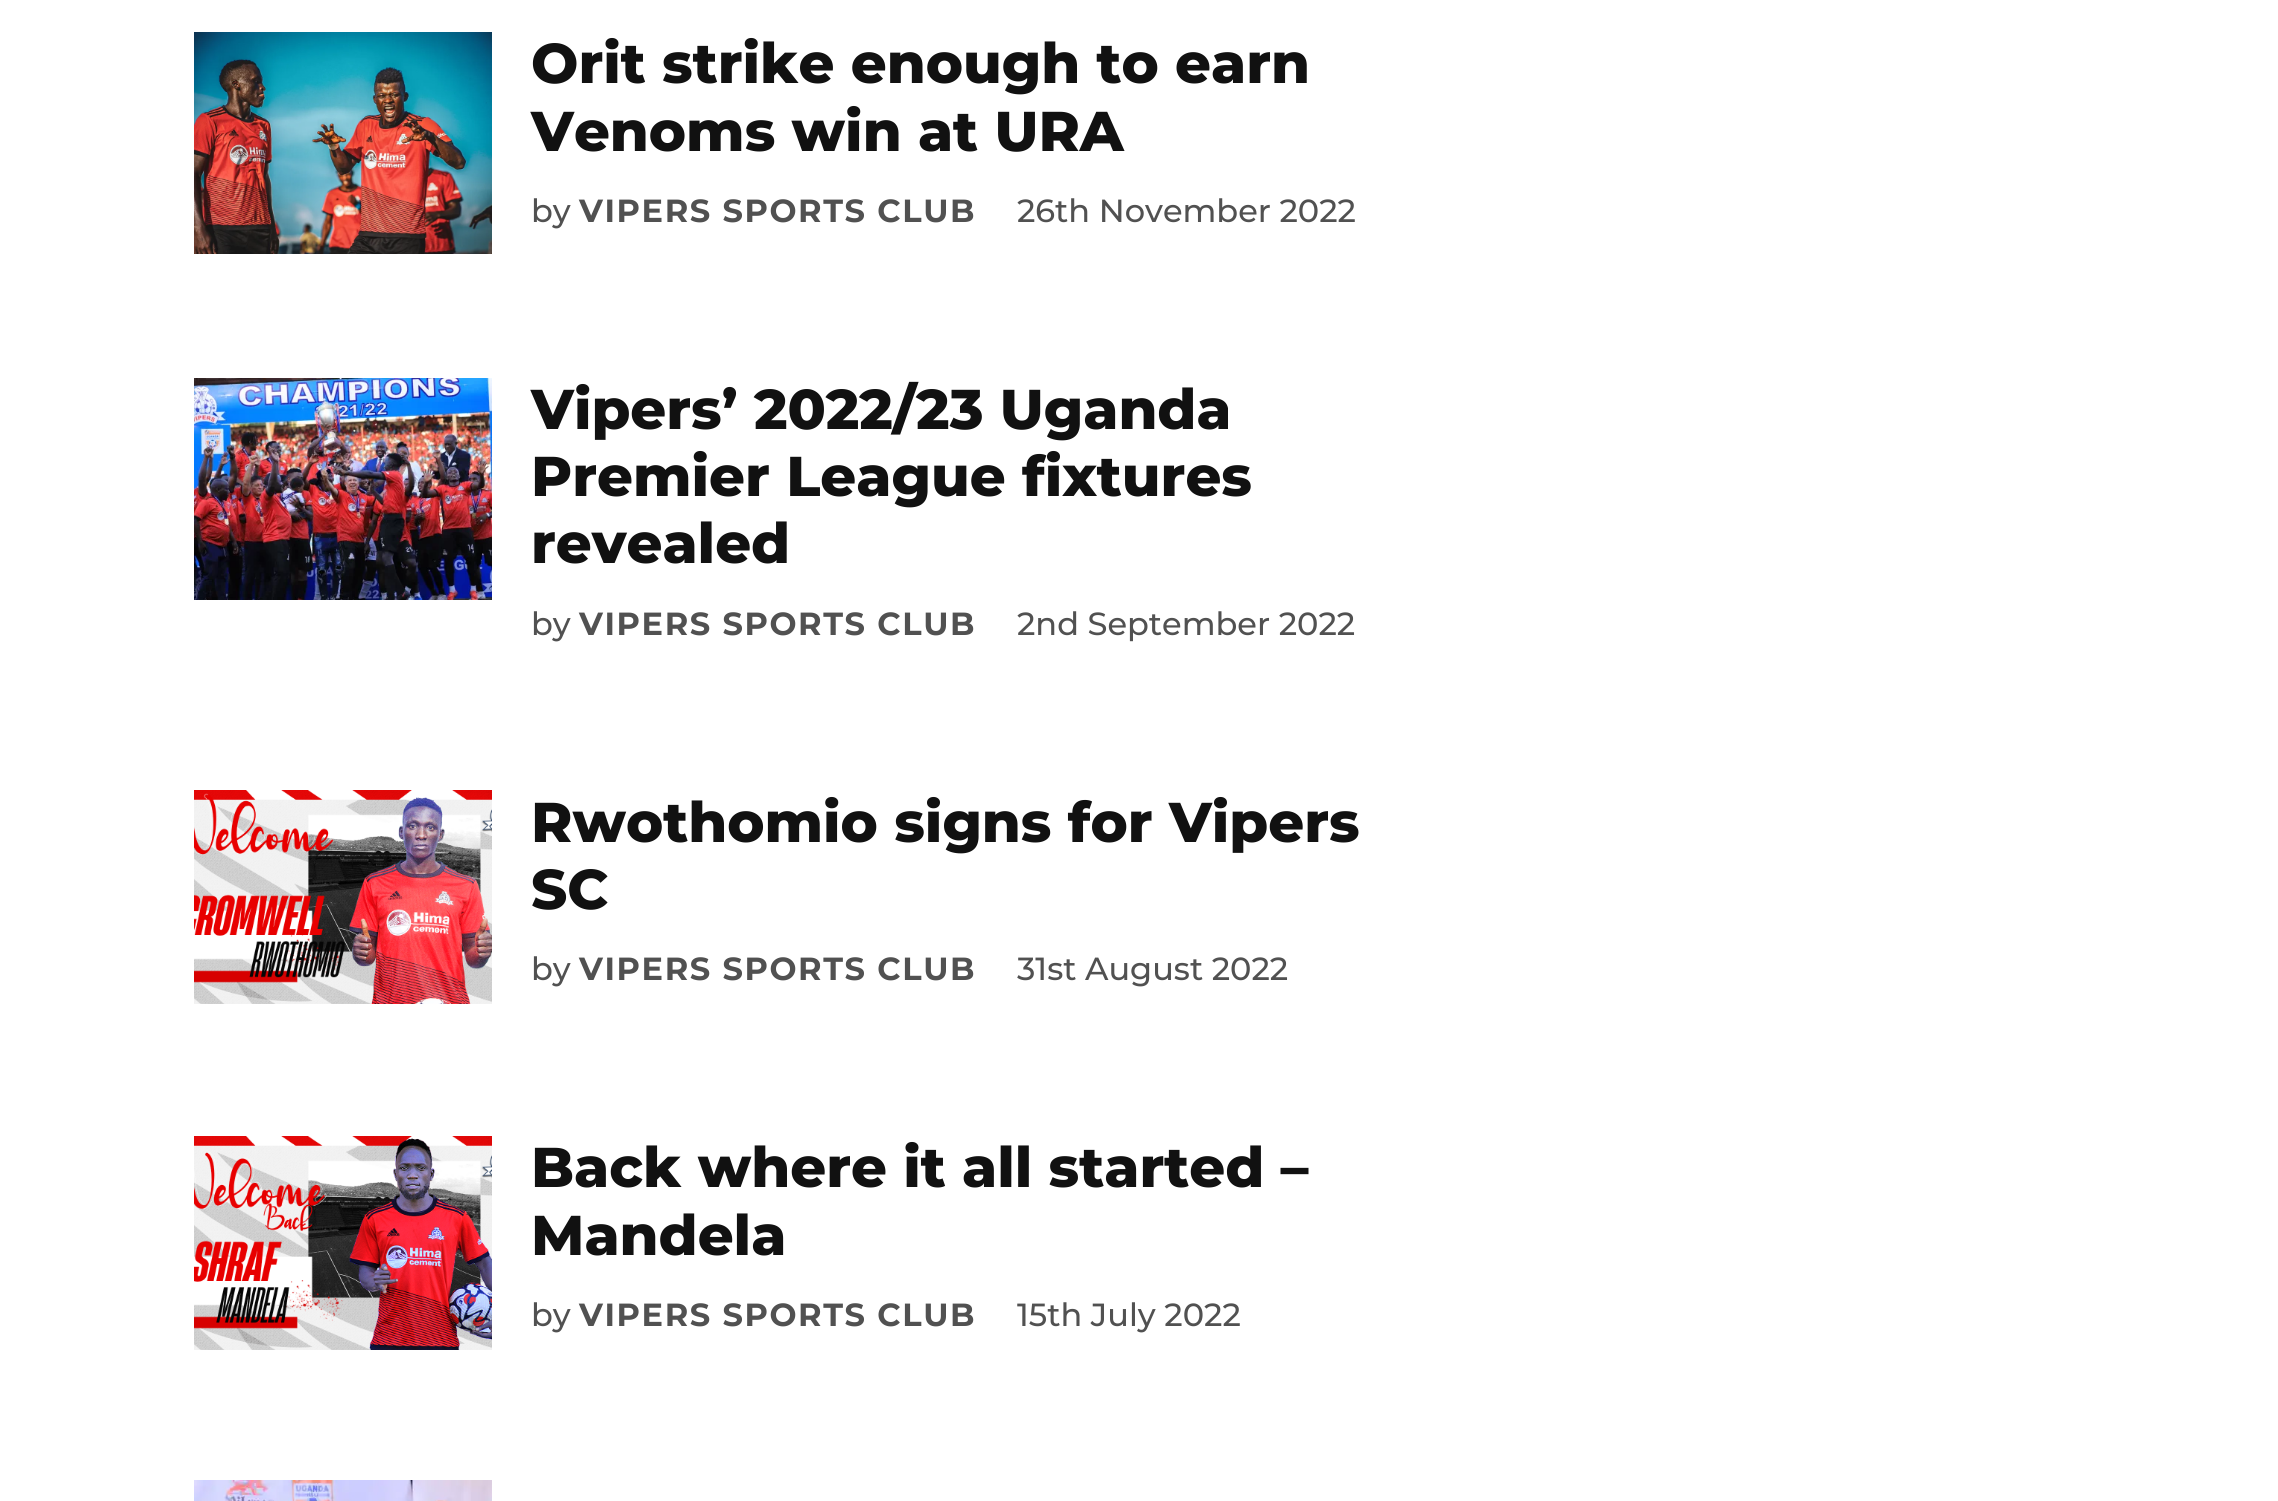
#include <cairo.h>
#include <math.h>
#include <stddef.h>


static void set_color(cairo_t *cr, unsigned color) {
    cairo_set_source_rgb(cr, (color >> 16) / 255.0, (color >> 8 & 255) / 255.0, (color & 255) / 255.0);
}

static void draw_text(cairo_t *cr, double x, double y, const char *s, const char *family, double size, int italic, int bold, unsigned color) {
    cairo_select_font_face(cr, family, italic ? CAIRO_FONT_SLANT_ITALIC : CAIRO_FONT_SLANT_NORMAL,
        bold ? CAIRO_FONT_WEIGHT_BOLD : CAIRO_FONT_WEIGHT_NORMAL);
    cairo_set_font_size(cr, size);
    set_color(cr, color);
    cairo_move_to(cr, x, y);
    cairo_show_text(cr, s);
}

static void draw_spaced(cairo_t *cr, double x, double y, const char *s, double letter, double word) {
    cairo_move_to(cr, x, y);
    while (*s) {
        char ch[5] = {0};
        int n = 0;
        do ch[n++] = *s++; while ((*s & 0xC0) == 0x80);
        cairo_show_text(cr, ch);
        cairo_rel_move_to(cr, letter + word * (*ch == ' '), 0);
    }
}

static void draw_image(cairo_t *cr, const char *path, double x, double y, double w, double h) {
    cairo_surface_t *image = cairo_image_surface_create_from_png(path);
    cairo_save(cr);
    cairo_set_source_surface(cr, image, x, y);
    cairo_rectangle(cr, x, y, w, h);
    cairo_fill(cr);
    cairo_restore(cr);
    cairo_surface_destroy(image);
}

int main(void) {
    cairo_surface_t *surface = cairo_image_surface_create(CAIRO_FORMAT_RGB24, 2278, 1501);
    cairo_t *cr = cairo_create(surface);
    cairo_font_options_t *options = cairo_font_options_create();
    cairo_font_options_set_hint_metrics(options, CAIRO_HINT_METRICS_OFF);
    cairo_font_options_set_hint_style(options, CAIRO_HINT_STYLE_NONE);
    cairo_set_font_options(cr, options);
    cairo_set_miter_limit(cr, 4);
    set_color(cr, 0xFFFFFF);
    cairo_paint(cr);
    draw_image(cr, "assets/img1.png", 194, 32, 298, 222);
    draw_text(cr, 531, 83, "Orit strike enough to earn", "Montserrat ExtraBold", 56, 0, 0, 0x111111);
    draw_text(cr, 531, 151, "Venoms win at URA", "Montserrat ExtraBold", 56, 0, 0, 0x111111);
    draw_text(cr, 531, 222, "by", "Montserrat Medium", 32, 0, 0, 0x515151);
    cairo_select_font_face(cr, "Montserrat", CAIRO_FONT_SLANT_NORMAL, CAIRO_FONT_WEIGHT_BOLD);
    draw_spaced(cr, 579, 222, "VIPERS SPORTS CLUB", 1.6, 0);
    draw_text(cr, 1017, 222, "26th November 2022", "Montserrat Medium", 32, 0, 0, 0x515151);
    draw_image(cr, "assets/img2.png", 194, 378, 298, 222);
    draw_text(cr, 531, 429, "Vipers’ 2022/23 Uganda", "Montserrat ExtraBold", 56, 0, 0, 0x111111);
    draw_text(cr, 531, 496, "Premier League fixtures", "Montserrat ExtraBold", 56, 0, 0, 0x111111);
    draw_text(cr, 531, 563, "revealed", "Montserrat ExtraBold", 56, 0, 0, 0x111111);
    draw_text(cr, 531, 635, "by", "Montserrat Medium", 32, 0, 0, 0x515151);
    cairo_select_font_face(cr, "Montserrat", CAIRO_FONT_SLANT_NORMAL, CAIRO_FONT_WEIGHT_BOLD);
    draw_spaced(cr, 579, 635, "VIPERS SPORTS CLUB", 1.6, 0);
    draw_text(cr, 1017, 635, "2nd September 2022", "Montserrat Medium", 32, 0, 0, 0x515151);
    draw_image(cr, "assets/img3.png", 194, 790, 298, 214);
    draw_text(cr, 531, 842, "Rwothomio signs for Vipers", "Montserrat ExtraBold", 56, 0, 0, 0x111111);
    draw_text(cr, 531, 909, "SC", "Montserrat ExtraBold", 56, 0, 0, 0x111111);
    draw_text(cr, 531, 980, "by", "Montserrat Medium", 32, 0, 0, 0x515151);
    cairo_select_font_face(cr, "Montserrat", CAIRO_FONT_SLANT_NORMAL, CAIRO_FONT_WEIGHT_BOLD);
    draw_spaced(cr, 579, 980, "VIPERS SPORTS CLUB", 1.6, 0);
    draw_text(cr, 1017, 980, "31st August 2022", "Montserrat Medium", 32, 0, 0, 0x515151);
    draw_image(cr, "assets/img4.png", 194, 1136, 298, 214);
    draw_text(cr, 531, 1187, "Back where it all started –", "Montserrat ExtraBold", 56, 0, 0, 0x111111);
    draw_text(cr, 531, 1255, "Mandela", "Montserrat ExtraBold", 56, 0, 0, 0x111111);
    draw_text(cr, 531, 1326, "by", "Montserrat Medium", 32, 0, 0, 0x515151);
    cairo_select_font_face(cr, "Montserrat", CAIRO_FONT_SLANT_NORMAL, CAIRO_FONT_WEIGHT_BOLD);
    draw_spaced(cr, 579, 1326, "VIPERS SPORTS CLUB", 1.6, 0);
    draw_text(cr, 1017, 1326, "15th July 2022", "Montserrat Medium", 32, 0, 0, 0x515151);
    draw_image(cr, "assets/img5.png", 194, 1480, 298, 21);
    cairo_surface_write_to_png(surface, "output.png");
    cairo_font_options_destroy(options);
    cairo_destroy(cr);
    cairo_surface_destroy(surface);
    return 0;
}
